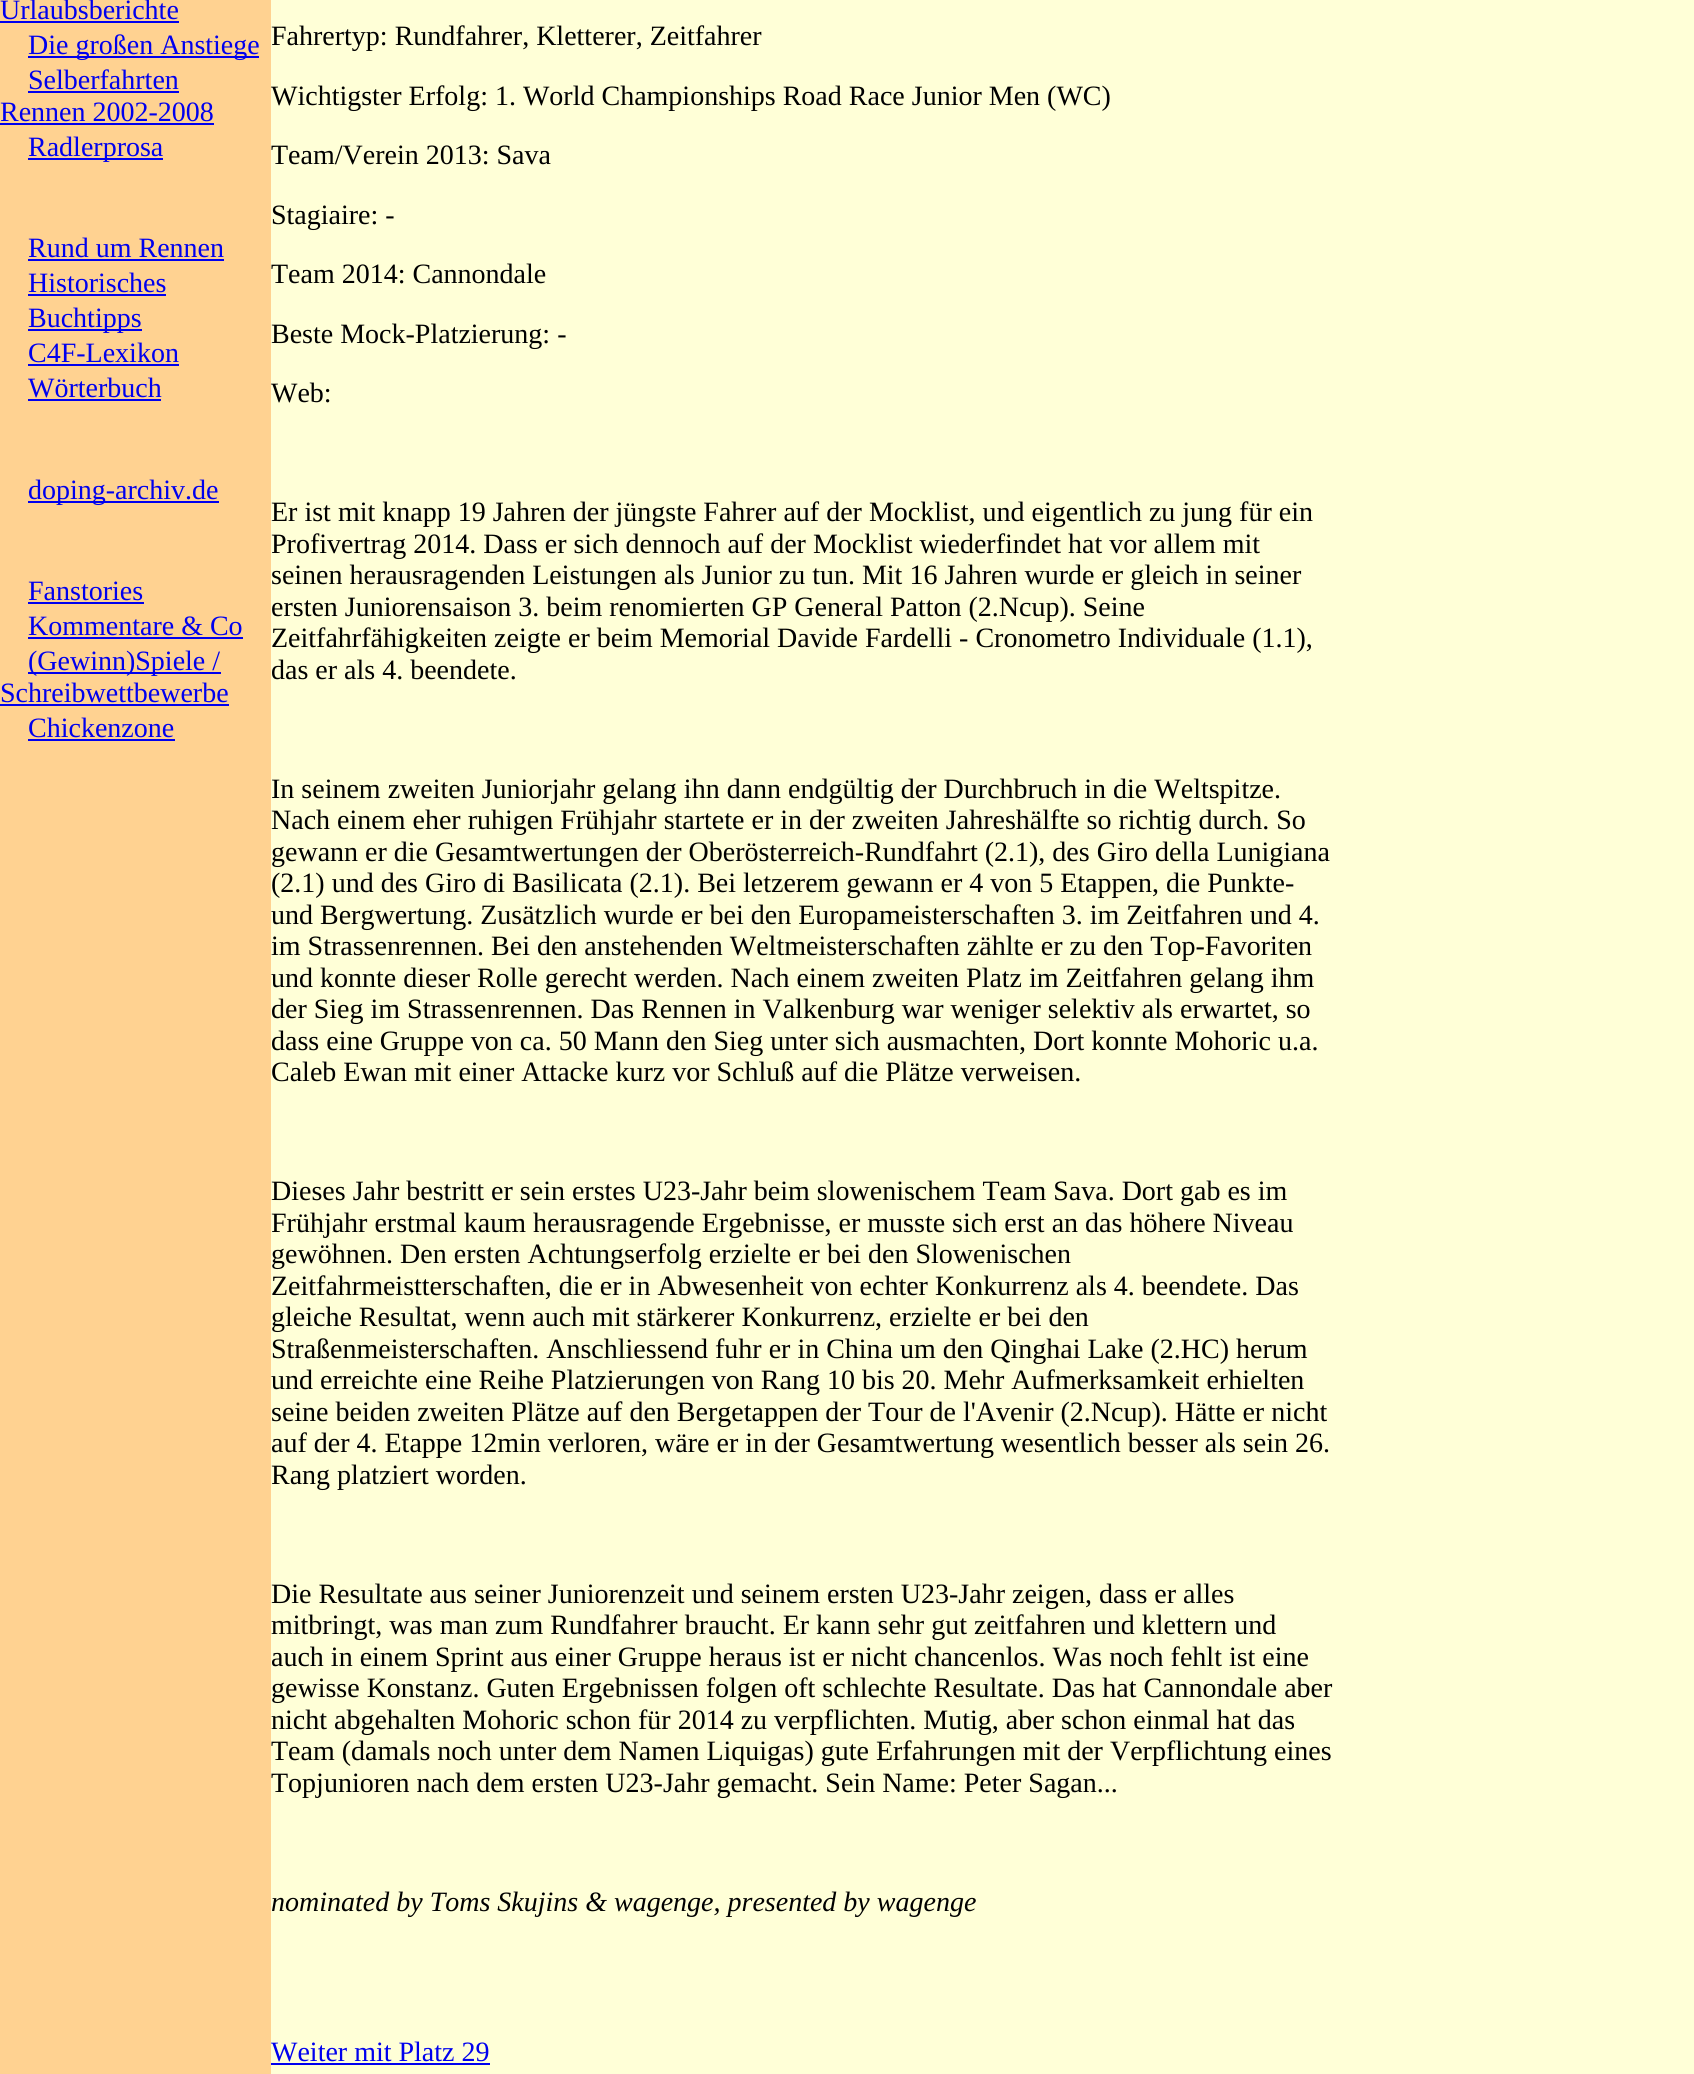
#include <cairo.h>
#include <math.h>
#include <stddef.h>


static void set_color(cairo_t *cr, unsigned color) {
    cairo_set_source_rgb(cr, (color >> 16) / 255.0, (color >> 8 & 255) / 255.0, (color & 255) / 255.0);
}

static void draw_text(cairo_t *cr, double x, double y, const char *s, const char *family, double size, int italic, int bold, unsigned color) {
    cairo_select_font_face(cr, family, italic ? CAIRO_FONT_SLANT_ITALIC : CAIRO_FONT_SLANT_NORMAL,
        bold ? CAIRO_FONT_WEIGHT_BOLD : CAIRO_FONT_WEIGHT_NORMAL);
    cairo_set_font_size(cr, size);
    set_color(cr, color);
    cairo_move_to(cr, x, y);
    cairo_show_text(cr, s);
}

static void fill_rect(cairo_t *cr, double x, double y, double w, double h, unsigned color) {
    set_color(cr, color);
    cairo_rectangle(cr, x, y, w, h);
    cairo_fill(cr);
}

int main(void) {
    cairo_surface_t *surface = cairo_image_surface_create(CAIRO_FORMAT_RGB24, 1694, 2074);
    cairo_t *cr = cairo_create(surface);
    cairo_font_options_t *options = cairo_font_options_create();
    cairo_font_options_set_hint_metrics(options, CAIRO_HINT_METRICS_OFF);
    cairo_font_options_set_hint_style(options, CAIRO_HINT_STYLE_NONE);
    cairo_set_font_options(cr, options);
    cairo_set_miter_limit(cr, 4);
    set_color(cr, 0xFFFFD7);
    cairo_paint(cr);
    fill_rect(cr, 0, 0, 271, 2074, 0xFFD291);
    draw_text(cr, 0, 19, "Urlaubsberichte", "Liberation Serif", 28, 0, 0, 0x0000EE);
    fill_rect(cr, 0, 21, 179, 2, 0x0000EE);
    fill_rect(cr, 28, 56, 231, 2, 0x0000EE);
    draw_text(cr, 28, 54, "Die großen Anstiege", "Liberation Serif", 28, 0, 0, 0x0000EE);
    draw_text(cr, 28, 89, "Selberfahrten", "Liberation Serif", 28, 0, 0, 0x0000EE);
    fill_rect(cr, 28, 91, 151, 2, 0x0000EE);
    draw_text(cr, 0, 121, "Rennen 2002-2008", "Liberation Serif", 28, 0, 0, 0x0000EE);
    fill_rect(cr, 0, 123, 214, 2, 0x0000EE);
    fill_rect(cr, 28, 158, 135, 2, 0x0000EE);
    draw_text(cr, 28, 156, "Radlerprosa", "Liberation Serif", 28, 0, 0, 0x0000EE);
    draw_text(cr, 28, 257, "Rund um Rennen", "Liberation Serif", 28, 0, 0, 0x0000EE);
    fill_rect(cr, 28, 259, 196, 2, 0x0000EE);
    draw_text(cr, 28, 292, "Historisches", "Liberation Serif", 28, 0, 0, 0x0000EE);
    fill_rect(cr, 28, 294, 138, 2, 0x0000EE);
    fill_rect(cr, 28, 329, 114, 2, 0x0000EE);
    draw_text(cr, 28, 327, "Buchtipps", "Liberation Serif", 28, 0, 0, 0x0000EE);
    draw_text(cr, 28, 362, "C4F-Lexikon", "Liberation Serif", 28, 0, 0, 0x0000EE);
    fill_rect(cr, 28, 364, 151, 2, 0x0000EE);
    draw_text(cr, 28, 397, "Wörterbuch", "Liberation Serif", 28, 0, 0, 0x0000EE);
    fill_rect(cr, 28, 399, 133, 2, 0x0000EE);
    fill_rect(cr, 28, 501, 191, 2, 0x0000EE);
    draw_text(cr, 28, 499, "doping-archiv.de", "Liberation Serif", 28, 0, 0, 0x0000EE);
    draw_text(cr, 28, 600, "Fanstories", "Liberation Serif", 28, 0, 0, 0x0000EE);
    fill_rect(cr, 28, 602, 116, 2, 0x0000EE);
    draw_text(cr, 28, 635, "Kommentare & Co", "Liberation Serif", 28, 0, 0, 0x0000EE);
    fill_rect(cr, 28, 637, 215, 2, 0x0000EE);
    fill_rect(cr, 28, 672, 193, 2, 0x0000EE);
    draw_text(cr, 28, 670, "(Gewinn)Spiele /", "Liberation Serif", 28, 0, 0, 0x0000EE);
    draw_text(cr, 0, 702, "Schreibwettbewerbe", "Liberation Serif", 28, 0, 0, 0x0000EE);
    fill_rect(cr, 0, 704, 229, 2, 0x0000EE);
    draw_text(cr, 28, 737, "Chickenzone", "Liberation Serif", 28, 0, 0, 0x0000EE);
    fill_rect(cr, 28, 739, 147, 2, 0x0000EE);
    draw_text(cr, 271, 45, "Fahrertyp: Rundfahrer, Kletterer, Zeitfahrer", "Liberation Serif", 28, 0, 0, 0x000000);
    draw_text(cr, 271, 105, "Wichtigster Erfolg: 1. World Championships Road Race Junior Men (WC)", "Liberation Serif", 28, 0, 0, 0x000000);
    draw_text(cr, 271, 164, "Team/Verein 2013: Sava", "Liberation Serif", 28, 0, 0, 0x000000);
    draw_text(cr, 271, 224, "Stagiaire: -", "Liberation Serif", 28, 0, 0, 0x000000);
    draw_text(cr, 271, 283, "Team 2014: Cannondale", "Liberation Serif", 28, 0, 0, 0x000000);
    draw_text(cr, 271, 343, "Beste Mock-Platzierung: -", "Liberation Serif", 28, 0, 0, 0x000000);
    draw_text(cr, 271, 402, "Web:", "Liberation Serif", 28, 0, 0, 0x000000);
    draw_text(cr, 271, 521, "Er ist mit knapp 19 Jahren der jüngste Fahrer auf der Mocklist, und eigentlich zu jung für ein", "Liberation Serif", 28, 0, 0, 0x000000);
    draw_text(cr, 271, 553, "Profivertrag 2014. Dass er sich dennoch auf der Mocklist wiederfindet hat vor allem mit", "Liberation Serif", 28, 0, 0, 0x000000);
    draw_text(cr, 271, 584, "seinen herausragenden Leistungen als Junior zu tun. Mit 16 Jahren wurde er gleich in seiner", "Liberation Serif", 28, 0, 0, 0x000000);
    draw_text(cr, 271, 616, "ersten Juniorensaison 3. beim renomierten GP General Patton (2.Ncup). Seine", "Liberation Serif", 28, 0, 0, 0x000000);
    draw_text(cr, 271, 647, "Zeitfahrfähigkeiten zeigte er beim Memorial Davide Fardelli - Cronometro Individuale (1.1),", "Liberation Serif", 28, 0, 0, 0x000000);
    draw_text(cr, 271, 679, "das er als 4. beendete.", "Liberation Serif", 28, 0, 0, 0x000000);
    draw_text(cr, 271, 798, "In seinem zweiten Juniorjahr gelang ihn dann endgültig der Durchbruch in die Weltspitze.", "Liberation Serif", 28, 0, 0, 0x000000);
    draw_text(cr, 271, 829, "Nach einem eher ruhigen Frühjahr startete er in der zweiten Jahreshälfte so richtig durch. So", "Liberation Serif", 28, 0, 0, 0x000000);
    draw_text(cr, 271, 861, "gewann er die Gesamtwertungen der Oberösterreich-Rundfahrt (2.1), des Giro della Lunigiana", "Liberation Serif", 28, 0, 0, 0x000000);
    draw_text(cr, 271, 892, "(2.1) und des Giro di Basilicata (2.1). Bei letzerem gewann er 4 von 5 Etappen, die Punkte-", "Liberation Serif", 28, 0, 0, 0x000000);
    draw_text(cr, 271, 924, "und Bergwertung. Zusätzlich wurde er bei den Europameisterschaften 3. im Zeitfahren und 4.", "Liberation Serif", 28, 0, 0, 0x000000);
    draw_text(cr, 271, 955, "im Strassenrennen. Bei den anstehenden Weltmeisterschaften zählte er zu den Top-Favoriten", "Liberation Serif", 28, 0, 0, 0x000000);
    draw_text(cr, 271, 987, "und konnte dieser Rolle gerecht werden. Nach einem zweiten Platz im Zeitfahren gelang ihm", "Liberation Serif", 28, 0, 0, 0x000000);
    draw_text(cr, 271, 1018, "der Sieg im Strassenrennen. Das Rennen in Valkenburg war weniger selektiv als erwartet, so", "Liberation Serif", 28, 0, 0, 0x000000);
    draw_text(cr, 271, 1050, "dass eine Gruppe von ca. 50 Mann den Sieg unter sich ausmachten, Dort konnte Mohoric u.a.", "Liberation Serif", 28, 0, 0, 0x000000);
    draw_text(cr, 271, 1081, "Caleb Ewan mit einer Attacke kurz vor Schluß auf die Plätze verweisen.", "Liberation Serif", 28, 0, 0, 0x000000);
    draw_text(cr, 271, 1200, "Dieses Jahr bestritt er sein erstes U23-Jahr beim slowenischem Team Sava. Dort gab es im", "Liberation Serif", 28, 0, 0, 0x000000);
    draw_text(cr, 271, 1232, "Frühjahr erstmal kaum herausragende Ergebnisse, er musste sich erst an das höhere Niveau", "Liberation Serif", 28, 0, 0, 0x000000);
    draw_text(cr, 271, 1263, "gewöhnen. Den ersten Achtungserfolg erzielte er bei den Slowenischen", "Liberation Serif", 28, 0, 0, 0x000000);
    draw_text(cr, 271, 1295, "Zeitfahrmeistterschaften, die er in Abwesenheit von echter Konkurrenz als 4. beendete. Das", "Liberation Serif", 28, 0, 0, 0x000000);
    draw_text(cr, 271, 1326, "gleiche Resultat, wenn auch mit stärkerer Konkurrenz, erzielte er bei den", "Liberation Serif", 28, 0, 0, 0x000000);
    draw_text(cr, 271, 1358, "Straßenmeisterschaften. Anschliessend fuhr er in China um den Qinghai Lake (2.HC) herum", "Liberation Serif", 28, 0, 0, 0x000000);
    draw_text(cr, 271, 1389, "und erreichte eine Reihe Platzierungen von Rang 10 bis 20. Mehr Aufmerksamkeit erhielten", "Liberation Serif", 28, 0, 0, 0x000000);
    draw_text(cr, 271, 1421, "seine beiden zweiten Plätze auf den Bergetappen der Tour de l'Avenir (2.Ncup). Hätte er nicht", "Liberation Serif", 28, 0, 0, 0x000000);
    draw_text(cr, 271, 1452, "auf der 4. Etappe 12min verloren, wäre er in der Gesamtwertung wesentlich besser als sein 26.", "Liberation Serif", 28, 0, 0, 0x000000);
    draw_text(cr, 271, 1484, "Rang platziert worden.", "Liberation Serif", 28, 0, 0, 0x000000);
    draw_text(cr, 271, 1603, "Die Resultate aus seiner Juniorenzeit und seinem ersten U23-Jahr zeigen, dass er alles", "Liberation Serif", 28, 0, 0, 0x000000);
    draw_text(cr, 271, 1634, "mitbringt, was man zum Rundfahrer braucht. Er kann sehr gut zeitfahren und klettern und", "Liberation Serif", 28, 0, 0, 0x000000);
    draw_text(cr, 271, 1666, "auch in einem Sprint aus einer Gruppe heraus ist er nicht chancenlos. Was noch fehlt ist eine", "Liberation Serif", 28, 0, 0, 0x000000);
    draw_text(cr, 271, 1697, "gewisse Konstanz. Guten Ergebnissen folgen oft schlechte Resultate. Das hat Cannondale aber", "Liberation Serif", 28, 0, 0, 0x000000);
    draw_text(cr, 271, 1729, "nicht abgehalten Mohoric schon für 2014 zu verpflichten. Mutig, aber schon einmal hat das", "Liberation Serif", 28, 0, 0, 0x000000);
    draw_text(cr, 271, 1760, "Team (damals noch unter dem Namen Liquigas) gute Erfahrungen mit der Verpflichtung eines", "Liberation Serif", 28, 0, 0, 0x000000);
    draw_text(cr, 271, 1792, "Topjunioren nach dem ersten U23-Jahr gemacht. Sein Name: Peter Sagan...", "Liberation Serif", 28, 0, 0, 0x000000);
    draw_text(cr, 271, 1911, "nominated by Toms Skujins & wagenge, presented by wagenge", "Liberation Serif", 28, 1, 0, 0x000000);
    draw_text(cr, 271, 2061, "Weiter mit Platz 29", "Liberation Serif", 28, 0, 0, 0x0000EE);
    fill_rect(cr, 271, 2063, 219, 2, 0x0000EE);
    cairo_surface_write_to_png(surface, "output.png");
    cairo_font_options_destroy(options);
    cairo_destroy(cr);
    cairo_surface_destroy(surface);
    return 0;
}
